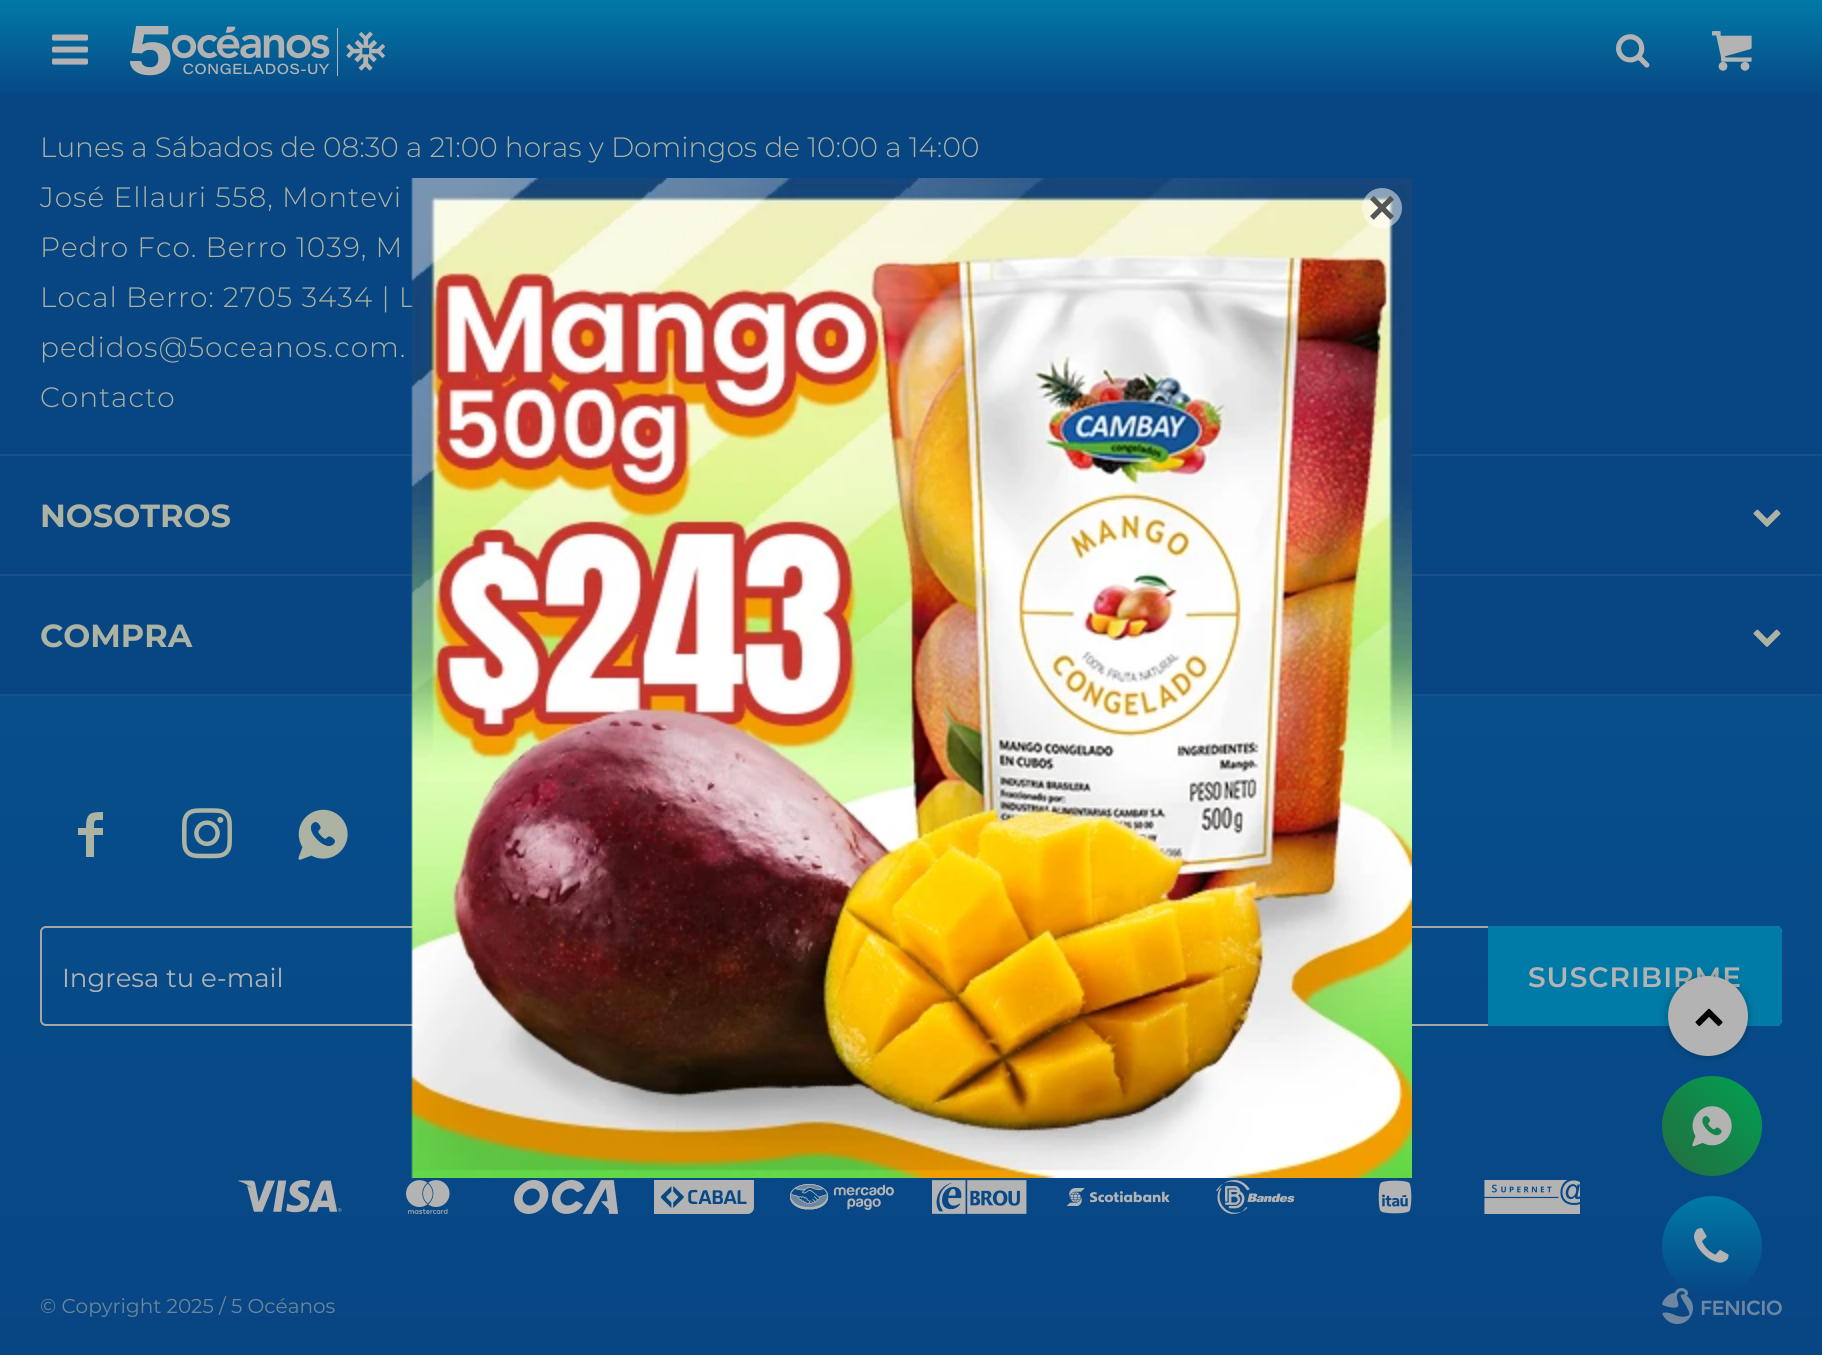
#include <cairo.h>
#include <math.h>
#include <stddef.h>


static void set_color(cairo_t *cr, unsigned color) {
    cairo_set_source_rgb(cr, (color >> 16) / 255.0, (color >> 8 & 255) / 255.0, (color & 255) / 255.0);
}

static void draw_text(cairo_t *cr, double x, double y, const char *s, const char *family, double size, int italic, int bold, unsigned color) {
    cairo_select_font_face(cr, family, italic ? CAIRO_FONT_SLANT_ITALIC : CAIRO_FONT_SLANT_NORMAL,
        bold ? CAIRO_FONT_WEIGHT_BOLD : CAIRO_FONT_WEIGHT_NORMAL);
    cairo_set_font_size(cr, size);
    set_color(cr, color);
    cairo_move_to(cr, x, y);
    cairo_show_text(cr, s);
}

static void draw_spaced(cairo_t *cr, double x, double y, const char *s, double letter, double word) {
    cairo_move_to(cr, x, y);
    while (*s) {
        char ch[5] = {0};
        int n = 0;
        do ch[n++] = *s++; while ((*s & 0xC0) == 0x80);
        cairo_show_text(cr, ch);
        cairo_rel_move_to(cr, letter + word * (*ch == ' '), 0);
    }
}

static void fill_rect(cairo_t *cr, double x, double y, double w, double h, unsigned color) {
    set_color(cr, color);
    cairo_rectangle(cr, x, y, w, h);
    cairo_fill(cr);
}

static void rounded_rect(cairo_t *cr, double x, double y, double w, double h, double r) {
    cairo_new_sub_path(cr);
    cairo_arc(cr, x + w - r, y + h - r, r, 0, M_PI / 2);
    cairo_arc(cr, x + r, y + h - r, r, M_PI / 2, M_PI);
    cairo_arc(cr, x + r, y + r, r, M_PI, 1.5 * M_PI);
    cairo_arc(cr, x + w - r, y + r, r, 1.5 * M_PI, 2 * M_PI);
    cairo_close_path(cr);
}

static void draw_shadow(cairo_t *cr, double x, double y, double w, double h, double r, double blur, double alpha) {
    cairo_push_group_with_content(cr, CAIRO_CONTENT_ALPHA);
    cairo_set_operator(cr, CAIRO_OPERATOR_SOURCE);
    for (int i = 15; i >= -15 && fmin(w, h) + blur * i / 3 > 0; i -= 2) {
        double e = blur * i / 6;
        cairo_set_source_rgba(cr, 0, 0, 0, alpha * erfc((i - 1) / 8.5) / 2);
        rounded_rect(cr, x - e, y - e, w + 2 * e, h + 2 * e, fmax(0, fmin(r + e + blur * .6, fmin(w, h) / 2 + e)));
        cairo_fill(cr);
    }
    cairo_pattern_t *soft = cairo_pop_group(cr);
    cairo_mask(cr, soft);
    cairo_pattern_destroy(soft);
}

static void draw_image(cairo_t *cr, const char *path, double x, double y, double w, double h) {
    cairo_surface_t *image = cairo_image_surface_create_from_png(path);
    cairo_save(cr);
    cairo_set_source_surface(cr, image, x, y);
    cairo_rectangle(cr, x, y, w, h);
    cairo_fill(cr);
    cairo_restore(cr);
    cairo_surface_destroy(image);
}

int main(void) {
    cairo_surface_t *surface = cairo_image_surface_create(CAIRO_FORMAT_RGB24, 1822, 1355);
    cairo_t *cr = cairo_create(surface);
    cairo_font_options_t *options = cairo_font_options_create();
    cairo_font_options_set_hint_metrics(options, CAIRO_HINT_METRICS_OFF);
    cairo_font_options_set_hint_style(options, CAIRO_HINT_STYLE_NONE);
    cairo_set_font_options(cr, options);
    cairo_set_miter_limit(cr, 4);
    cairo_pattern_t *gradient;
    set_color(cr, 0x084583);
    cairo_paint(cr);
    gradient = cairo_pattern_create_linear(911, 100, 911, 0);
    cairo_pattern_add_color_stop_rgba(gradient, 0, 0.031, 0.271, 0.514, 1);
    cairo_pattern_add_color_stop_rgba(gradient, 1, 0, 0.478, 0.655, 1);
    cairo_set_source(cr, gradient);
    cairo_pattern_destroy(gradient);
    cairo_rectangle(cr, 0, 0, 1822, 95);
    cairo_fill(cr);
    draw_image(cr, "assets/img1.png", 52, 34, 36, 31);
    draw_image(cr, "assets/img2.png", 130, 26, 256, 50);
    draw_image(cr, "assets/img3.png", 1616, 34, 34, 34);
    draw_image(cr, "assets/img4.png", 1712, 31, 40, 40);
    draw_text(cr, 40, 157, "Lunes a Sábados de 08:30 a 21:00 horas y Domingos de 10:00 a 14:00", "Montserrat Light", 28, 0, 0, 0xACB3A2);
    draw_spaced(cr, 40, 207, "José Ellauri 558, Montevi", 1, 0);
    draw_spaced(cr, 40, 257, "Pedro Fco. Berro 1039, M", 1, 0);
    draw_spaced(cr, 40, 307, "Local Berro: 2705 3434 | L", 1, 0);
    draw_spaced(cr, 40, 357, "pedidos@5oceanos.com.", 1, 0);
    draw_spaced(cr, 40, 407, "Contacto", 1, 0);
    fill_rect(cr, 0, 454, 1822, 2, 0x195088);
    draw_text(cr, 40, 527, "NOSOTROS", "Montserrat", 32, 0, 1, 0xACB3A2);
    draw_image(cr, "assets/img5.png", 1753, 509, 28, 18);
    fill_rect(cr, 0, 574, 1822, 2, 0x195088);
    draw_text(cr, 40, 647, "COMPRA", "Montserrat", 32, 0, 1, 0xACB3A2);
    draw_image(cr, "assets/img5.png", 1753, 629, 28, 18);
    fill_rect(cr, 0, 694, 1822, 2, 0x195088);
    gradient = cairo_pattern_create_linear(911, 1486, 911, 696);
    cairo_pattern_add_color_stop_rgba(gradient, 0, 0.031, 0.267, 0.518, 1);
    cairo_pattern_add_color_stop_rgba(gradient, 1, 0.027, 0.306, 0.545, 1);
    cairo_set_source(cr, gradient);
    cairo_pattern_destroy(gradient);
    cairo_rectangle(cr, 0, 696, 1822, 621);
    cairo_fill(cr);
    set_color(cr, 0xACB3A2);
    cairo_new_path(cr);
    cairo_move_to(cr, 103, 820);
    cairo_curve_to(cr, 94, 820, 94, 819, 94, 828);
    cairo_line_to(cr, 103, 828);
    cairo_line_to(cr, 103, 835);
    cairo_line_to(cr, 94, 835);
    cairo_line_to(cr, 94, 857);
    cairo_line_to(cr, 86, 857);
    cairo_line_to(cr, 86, 835);
    cairo_line_to(cr, 78, 835);
    cairo_line_to(cr, 78, 828);
    cairo_line_to(cr, 86, 828);
    cairo_curve_to(cr, 86, 813, 90, 812, 103, 812);
    cairo_close_path(cr);
    cairo_fill(cr);
    draw_image(cr, "assets/img6.png", 182, 808, 50, 51);
    draw_image(cr, "assets/img7.png", 298, 809, 50, 51);
    rounded_rect(cr, 41, 927, 1740, 98, 5);
    set_color(cr, 0xA6A6A6);
    cairo_stroke(cr);
    cairo_save(cr);
    cairo_rectangle(cr, 62, 960, 1598, 32);
    cairo_clip(cr);
    draw_text(cr, 62, 987, "Ingresa tu e-mail", "Montserrat", 26, 0, 0, 0xB3B3B3);
    cairo_restore(cr);
    set_color(cr, 0x007AA7);
    cairo_new_path(cr);
    cairo_move_to(cr, 1488, 926);
    cairo_line_to(cr, 1776, 926);
    cairo_curve_to(cr, 1779.5, 926, 1782, 928.5, 1782, 932);
    cairo_line_to(cr, 1782, 1020);
    cairo_curve_to(cr, 1782, 1023.5, 1779.5, 1026, 1776, 1026);
    cairo_line_to(cr, 1488, 1026);
    cairo_close_path(cr);
    cairo_fill(cr);
    cairo_select_font_face(cr, "Montserrat SemiBold", CAIRO_FONT_SLANT_NORMAL, CAIRO_FONT_WEIGHT_NORMAL);
    cairo_set_font_size(cr, 28);
    set_color(cr, 0xB3B3B3);
    draw_spaced(cr, 1528, 987, "SUSCRIBIRME", 1, 0);
    draw_image(cr, "assets/img8.png", 238, 1180, 104, 33);
    draw_image(cr, "assets/img9.png", 406, 1180, 44, 34);
    draw_image(cr, "assets/img10.png", 514, 1180, 104, 34);
    draw_image(cr, "assets/img11.png", 654, 1180, 100, 34);
    draw_image(cr, "assets/img12.png", 790, 1184, 104, 26);
    draw_image(cr, "assets/img13.png", 932, 1180, 95, 34);
    draw_image(cr, "assets/img14.png", 1066, 1188, 104, 18);
    draw_image(cr, "assets/img15.png", 1216, 1180, 79, 34);
    draw_image(cr, "assets/img16.png", 1378, 1180, 34, 34);
    draw_image(cr, "assets/img17.png", 1484, 1180, 96, 34);
    draw_text(cr, 40, 1313, "© Copyright 2025 / 5 Océanos", "Montserrat", 20, 0, 0, 0x6A8797);
    draw_image(cr, "assets/img18.png", 1662, 1288, 120, 36);
    set_color(cr, 0x000000);
    draw_shadow(cr, 1668, 976, 80, 80, 40, 5, 0.25);
    set_color(cr, 0xB3B3B3);
    cairo_arc(cr, 1708, 1016, 40, 0, 2 * M_PI);
    cairo_fill(cr);
    draw_image(cr, "assets/img19.png", 1695, 1008, 28, 18);
    draw_image(cr, "assets/img20.png", 411, 178, 1001, 1000);
    cairo_set_source_rgba(cr, 1, 1, 1, 0.5);
    cairo_arc(cr, 1382, 208, 20, 0, 2 * M_PI);
    cairo_fill(cr);
    draw_image(cr, "assets/img21.png", 1370, 195, 24, 25);
    gradient = cairo_pattern_create_linear(1662, 1176, 1762, 1076);
    cairo_pattern_add_color_stop_rgba(gradient, 0, 0.141, 0.42, 0.247, 1);
    cairo_pattern_add_color_stop_rgba(gradient, 1, 0.004, 0.631, 0.322, 1);
    cairo_set_source(cr, gradient);
    cairo_pattern_destroy(gradient);
    cairo_arc(cr, 1712, 1126, 50, 0, 2 * M_PI);
    cairo_fill(cr);
    draw_image(cr, "assets/img22.png", 1692, 1106, 40, 41);
    gradient = cairo_pattern_create_linear(1712, 1296, 1712, 1196);
    cairo_pattern_add_color_stop_rgba(gradient, 0, 0.031, 0.271, 0.514, 1);
    cairo_pattern_add_color_stop_rgba(gradient, 1, 0, 0.478, 0.655, 1);
    cairo_set_source(cr, gradient);
    cairo_pattern_destroy(gradient);
    cairo_arc(cr, 1712, 1246, 50, 0, 2 * M_PI);
    cairo_fill(cr);
    draw_image(cr, "assets/img23.png", 1694, 1228, 35, 35);
    cairo_surface_write_to_png(surface, "output.png");
    cairo_font_options_destroy(options);
    cairo_destroy(cr);
    cairo_surface_destroy(surface);
    return 0;
}
